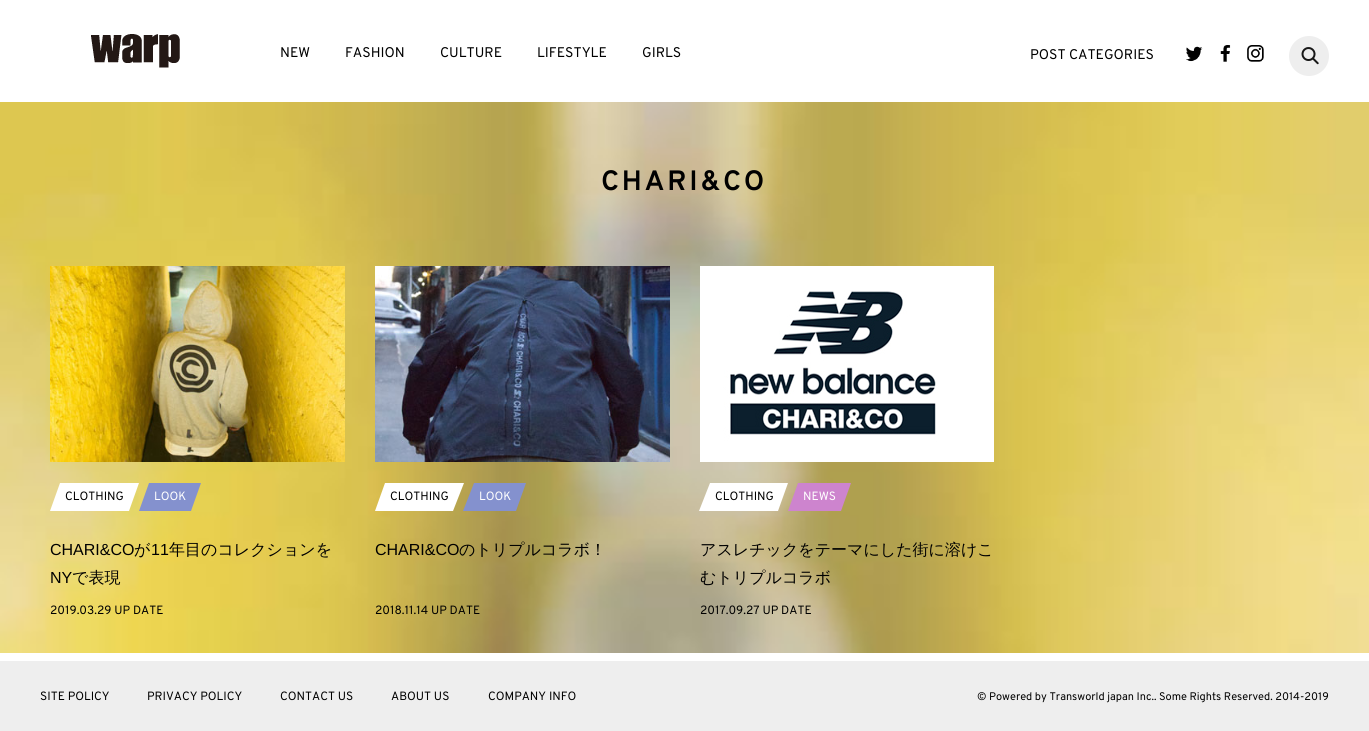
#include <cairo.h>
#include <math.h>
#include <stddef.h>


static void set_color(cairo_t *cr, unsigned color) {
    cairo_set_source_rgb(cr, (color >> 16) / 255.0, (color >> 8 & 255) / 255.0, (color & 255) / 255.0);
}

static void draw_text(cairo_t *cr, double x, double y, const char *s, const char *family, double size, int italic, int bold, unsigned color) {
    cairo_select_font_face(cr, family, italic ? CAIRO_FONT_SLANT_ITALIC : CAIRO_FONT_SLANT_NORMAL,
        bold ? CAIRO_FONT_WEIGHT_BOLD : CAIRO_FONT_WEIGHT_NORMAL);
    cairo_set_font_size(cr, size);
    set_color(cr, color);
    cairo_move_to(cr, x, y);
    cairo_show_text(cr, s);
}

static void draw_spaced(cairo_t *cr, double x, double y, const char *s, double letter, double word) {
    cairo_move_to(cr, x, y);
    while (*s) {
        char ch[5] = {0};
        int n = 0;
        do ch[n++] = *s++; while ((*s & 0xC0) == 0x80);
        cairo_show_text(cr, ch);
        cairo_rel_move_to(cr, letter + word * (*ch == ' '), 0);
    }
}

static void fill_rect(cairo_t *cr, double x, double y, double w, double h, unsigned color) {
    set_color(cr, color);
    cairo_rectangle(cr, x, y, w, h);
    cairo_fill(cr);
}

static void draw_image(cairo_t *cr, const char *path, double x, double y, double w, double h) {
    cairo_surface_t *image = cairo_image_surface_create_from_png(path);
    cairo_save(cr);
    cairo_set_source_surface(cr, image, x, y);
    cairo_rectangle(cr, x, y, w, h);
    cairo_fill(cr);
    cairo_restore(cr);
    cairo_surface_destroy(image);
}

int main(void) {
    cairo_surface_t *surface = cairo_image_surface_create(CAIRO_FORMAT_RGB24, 1369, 731);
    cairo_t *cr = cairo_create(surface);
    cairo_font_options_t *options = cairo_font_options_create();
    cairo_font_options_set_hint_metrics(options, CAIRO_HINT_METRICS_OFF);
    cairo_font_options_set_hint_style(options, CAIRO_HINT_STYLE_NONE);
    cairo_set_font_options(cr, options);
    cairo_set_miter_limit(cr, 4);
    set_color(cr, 0xFFFFFF);
    cairo_paint(cr);
    draw_image(cr, "assets/img1.png", 91, 34, 89, 34);
    draw_text(cr, 280, 57, "NEW", "Overpass", 14, 0, 0, 0x000000);
    draw_text(cr, 345, 57, "FASHION", "Overpass", 14, 0, 0, 0x000000);
    draw_text(cr, 440, 57, "CULTURE", "Overpass", 14, 0, 0, 0x000000);
    draw_text(cr, 537, 57, "LIFESTYLE", "Overpass", 14, 0, 0, 0x000000);
    draw_text(cr, 642, 57, "GIRLS", "Overpass", 14, 0, 0, 0x000000);
    draw_text(cr, 1030, 59, "POST CATEGORIES", "Overpass", 14, 0, 0, 0x000000);
    draw_image(cr, "assets/img2.png", 1186, 46, 17, 16);
    draw_image(cr, "assets/img3.png", 1220, 45, 11, 17);
    draw_image(cr, "assets/img4.png", 1247, 45, 17, 17);
    set_color(cr, 0xEEEEEE);
    cairo_arc(cr, 1309, 56, 20, 0, 2 * M_PI);
    cairo_fill(cr);
    draw_image(cr, "assets/img5.png", 1301, 47, 18, 18);
    draw_image(cr, "assets/img6.png", 0, 102, 1369, 551);
    cairo_select_font_face(cr, "Overpass", CAIRO_FONT_SLANT_NORMAL, CAIRO_FONT_WEIGHT_BOLD);
    cairo_set_font_size(cr, 28);
    set_color(cr, 0x000000);
    draw_spaced(cr, 601, 190, "CHARI&CO", 2.75, 0);
    draw_image(cr, "assets/img7.png", 50, 266, 295, 196);
    set_color(cr, 0xFFFFFF);
    cairo_new_path(cr);
    cairo_move_to(cr, 60, 483);
    cairo_line_to(cr, 139, 483);
    cairo_line_to(cr, 129, 511);
    cairo_line_to(cr, 50, 511);
    cairo_close_path(cr);
    cairo_fill(cr);
    draw_text(cr, 65, 500, "CLOTHING", "Overpass", 12, 0, 0, 0x000000);
    set_color(cr, 0x8491CE);
    cairo_new_path(cr);
    cairo_move_to(cr, 149, 483);
    cairo_line_to(cr, 201, 483);
    cairo_line_to(cr, 191, 511);
    cairo_line_to(cr, 139, 511);
    cairo_close_path(cr);
    cairo_fill(cr);
    draw_text(cr, 154, 500, "LOOK", "Overpass", 12, 0, 0, 0xFFFFFF);
    draw_text(cr, 50, 555, "CHARI&CO", "Liberation Sans", 16, 0, 0, 0x000000);
    draw_text(cr, 134, 555, "が", "WenQuanYi Zen Hei Medium", 16, 0, 0, 0x000000);
    draw_text(cr, 151, 555, "11", "Liberation Sans", 16, 0, 0, 0x000000);
    draw_text(cr, 169, 555, "年目のコレクションを", "WenQuanYi Zen Hei Medium", 16, 0, 0, 0x000000);
    draw_text(cr, 50, 583, "NY", "Liberation Sans", 16, 0, 0, 0x000000);
    draw_text(cr, 72, 583, "で表現", "WenQuanYi Zen Hei Medium", 16, 0, 0, 0x000000);
    draw_text(cr, 50, 614, "2019.03.29 UP DATE", "Overpass", 12, 0, 0, 0x000000);
    draw_image(cr, "assets/img8.png", 375, 266, 295, 196);
    set_color(cr, 0xFFFFFF);
    cairo_new_path(cr);
    cairo_move_to(cr, 385, 483);
    cairo_line_to(cr, 464, 483);
    cairo_line_to(cr, 453, 511);
    cairo_line_to(cr, 375, 511);
    cairo_close_path(cr);
    cairo_fill(cr);
    draw_text(cr, 390, 500, "CLOTHING", "Overpass", 12, 0, 0, 0x000000);
    set_color(cr, 0x8491CE);
    cairo_new_path(cr);
    cairo_move_to(cr, 474, 483);
    cairo_line_to(cr, 526, 483);
    cairo_line_to(cr, 516, 511);
    cairo_line_to(cr, 463, 511);
    cairo_close_path(cr);
    cairo_fill(cr);
    draw_text(cr, 479, 500, "LOOK", "Overpass", 12, 0, 0, 0xFFFFFF);
    draw_text(cr, 375, 555, "CHARI&CO", "Liberation Sans", 16, 0, 0, 0x000000);
    draw_text(cr, 459, 555, "のトリプルコラボ！", "WenQuanYi Zen Hei Medium", 16, 0, 0, 0x000000);
    draw_text(cr, 375, 614, "2018.11.14 UP DATE", "Overpass", 12, 0, 0, 0x000000);
    draw_image(cr, "assets/img9.png", 700, 266, 294, 196);
    set_color(cr, 0xFFFFFF);
    cairo_new_path(cr);
    cairo_move_to(cr, 710, 483);
    cairo_line_to(cr, 788, 483);
    cairo_line_to(cr, 778, 511);
    cairo_line_to(cr, 699, 511);
    cairo_close_path(cr);
    cairo_fill(cr);
    draw_text(cr, 715, 500, "CLOTHING", "Overpass", 12, 0, 0, 0x000000);
    set_color(cr, 0xCD84CE);
    cairo_new_path(cr);
    cairo_move_to(cr, 798, 483);
    cairo_line_to(cr, 851, 483);
    cairo_line_to(cr, 841, 511);
    cairo_line_to(cr, 788, 511);
    cairo_close_path(cr);
    cairo_fill(cr);
    draw_text(cr, 803, 500, "NEWS", "Overpass", 12, 0, 0, 0xFFFFFF);
    draw_text(cr, 700, 555, "アスレチックをテーマにした街に溶けこ", "WenQuanYi Zen Hei Medium", 16, 0, 0, 0x000000);
    draw_text(cr, 700, 583, "むトリプルコラボ", "WenQuanYi Zen Hei Medium", 16, 0, 0, 0x000000);
    draw_text(cr, 700, 614, "2017.09.27 UP DATE", "Overpass", 12, 0, 0, 0x000000);
    fill_rect(cr, 0, 661, 1369, 70, 0xEEEEEE);
    draw_text(cr, 40, 700, "SITE POLICY", "Overpass", 12, 0, 0, 0x000000);
    draw_text(cr, 147, 700, "PRIVACY POLICY", "Overpass", 12, 0, 0, 0x000000);
    draw_text(cr, 280, 700, "CONTACT US", "Overpass", 12, 0, 0, 0x000000);
    draw_text(cr, 391, 700, "ABOUT US", "Overpass", 12, 0, 0, 0x000000);
    draw_text(cr, 488, 700, "COMPANY INFO", "Overpass", 12, 0, 0, 0x000000);
    draw_text(cr, 977, 700, "© Powered by Transworld japan Inc.. Some Rights Reserved. 2014-2019", "Overpass", 11, 0, 0, 0x000000);
    cairo_surface_write_to_png(surface, "output.png");
    cairo_font_options_destroy(options);
    cairo_destroy(cr);
    cairo_surface_destroy(surface);
    return 0;
}
